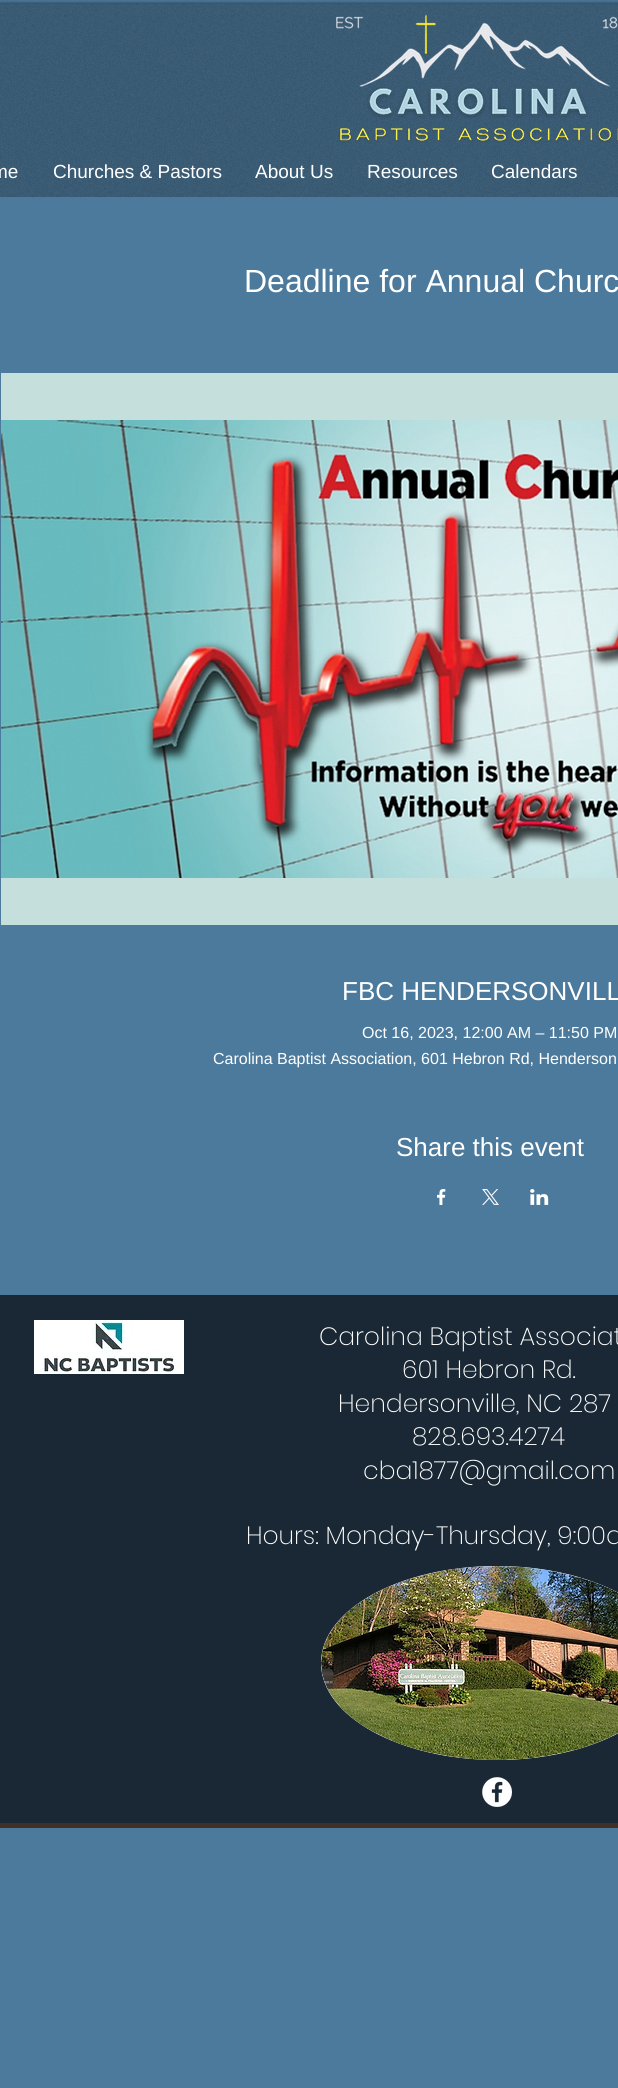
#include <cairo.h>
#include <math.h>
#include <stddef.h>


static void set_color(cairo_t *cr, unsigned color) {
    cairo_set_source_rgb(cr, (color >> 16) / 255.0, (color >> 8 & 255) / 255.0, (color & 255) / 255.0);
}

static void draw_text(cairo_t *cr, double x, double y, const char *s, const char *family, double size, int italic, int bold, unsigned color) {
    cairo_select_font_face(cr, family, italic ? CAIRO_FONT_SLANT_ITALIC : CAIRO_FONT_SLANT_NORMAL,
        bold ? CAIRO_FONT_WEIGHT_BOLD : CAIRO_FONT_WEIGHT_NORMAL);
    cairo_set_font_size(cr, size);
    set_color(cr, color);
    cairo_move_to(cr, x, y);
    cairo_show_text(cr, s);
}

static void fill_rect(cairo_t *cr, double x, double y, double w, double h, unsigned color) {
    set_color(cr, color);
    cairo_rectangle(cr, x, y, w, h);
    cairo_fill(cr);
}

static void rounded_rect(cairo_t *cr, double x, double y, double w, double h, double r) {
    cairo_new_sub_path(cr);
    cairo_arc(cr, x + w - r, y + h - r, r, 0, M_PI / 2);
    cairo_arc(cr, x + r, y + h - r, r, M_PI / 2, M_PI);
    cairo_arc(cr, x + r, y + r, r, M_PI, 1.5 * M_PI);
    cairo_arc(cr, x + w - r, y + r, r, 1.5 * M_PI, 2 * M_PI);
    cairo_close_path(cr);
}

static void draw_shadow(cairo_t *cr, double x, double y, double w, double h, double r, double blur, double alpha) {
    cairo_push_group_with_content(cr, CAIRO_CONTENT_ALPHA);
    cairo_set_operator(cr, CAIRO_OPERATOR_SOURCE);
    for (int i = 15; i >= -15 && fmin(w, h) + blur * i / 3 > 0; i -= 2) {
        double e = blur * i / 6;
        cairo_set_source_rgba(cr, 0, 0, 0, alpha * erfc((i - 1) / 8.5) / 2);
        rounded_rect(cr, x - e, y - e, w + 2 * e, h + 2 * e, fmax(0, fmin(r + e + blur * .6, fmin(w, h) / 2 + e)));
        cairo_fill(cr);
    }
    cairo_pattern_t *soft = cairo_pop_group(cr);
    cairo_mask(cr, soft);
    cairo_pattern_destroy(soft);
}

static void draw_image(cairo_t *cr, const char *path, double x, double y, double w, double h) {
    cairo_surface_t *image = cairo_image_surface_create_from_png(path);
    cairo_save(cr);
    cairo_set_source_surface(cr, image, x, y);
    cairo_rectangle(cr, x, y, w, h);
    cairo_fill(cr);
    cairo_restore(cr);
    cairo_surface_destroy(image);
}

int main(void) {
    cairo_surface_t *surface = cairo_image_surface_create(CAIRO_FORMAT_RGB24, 618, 2088);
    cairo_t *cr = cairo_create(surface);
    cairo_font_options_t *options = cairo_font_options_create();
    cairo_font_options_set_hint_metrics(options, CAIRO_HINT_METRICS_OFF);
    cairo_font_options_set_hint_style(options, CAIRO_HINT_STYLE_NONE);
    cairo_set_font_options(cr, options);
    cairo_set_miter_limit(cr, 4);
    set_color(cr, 0x4C7A9C);
    cairo_paint(cr);
    set_color(cr, 0x000000);
    draw_shadow(cr, 0, 4, 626, 193, 0, 2.5, 0.7);
    fill_rect(cr, 0, 4, 618, 193, 0x3A5C76);
    draw_image(cr, "assets/img1.png", 0, 4, 618, 193);
    draw_image(cr, "assets/img2.png", 336, 14, 282, 129);
    draw_text(cr, -8, 178, "me", "Liberation Sans", 19, 0, 0, 0xFFFFFF);
    draw_text(cr, 53, 178, "Churches & Pastors", "Liberation Sans", 19, 0, 0, 0xFFFFFF);
    draw_text(cr, 255, 178, "About Us", "Liberation Sans", 19, 0, 0, 0xFFFFFF);
    draw_text(cr, 367, 178, "Resources", "Liberation Sans", 19, 0, 0, 0xFFFFFF);
    draw_text(cr, 491, 178, "Calendars", "Liberation Sans", 19, 0, 0, 0xFFFFFF);
    fill_rect(cr, 0, 197, 618, 5, 0x4C7A9C);
    draw_text(cr, 244, 292, "Deadline for Annual Churc", "Liberation Sans", 32, 0, 0, 0xFFFFFF);
    fill_rect(cr, 1, 373, 617, 552, 0xC5E0DC);
    draw_image(cr, "assets/img3.png", 1, 420, 617, 458);
    draw_text(cr, 342, 1000, "FBC HENDERSONVILL", "Liberation Sans", 26, 0, 0, 0xFFFFFF);
    draw_text(cr, 362, 1038, "Oct 16, 2023, 12:00 AM – 11:50 PM", "Liberation Sans", 16, 0, 0, 0xFFFFFF);
    draw_text(cr, 213, 1064, "Carolina Baptist Association, 601 Hebron Rd, Henderson", "Liberation Sans", 16, 0, 0, 0xFFFFFF);
    draw_text(cr, 396, 1156, "Share this event", "Liberation Sans", 26, 0, 0, 0xFFFFFF);
    draw_image(cr, "assets/img4.png", 437, 1189, 9, 16);
    draw_image(cr, "assets/img5.png", 482, 1189, 17, 16);
    draw_image(cr, "assets/img6.png", 530, 1189, 19, 16);
    fill_rect(cr, 0, 1295, 618, 528, 0x192834);
    fill_rect(cr, 0, 1823, 618, 5, 0x403027);
    draw_image(cr, "assets/img7.png", 34, 1320, 150, 54);
    draw_text(cr, 319, 1345, "Carolina Baptist Associat", "Poppins ExtraLight", 25, 0, 0, 0xFFFFFF);
    draw_text(cr, 402, 1378, "601 Hebron Rd.", "Poppins ExtraLight", 25, 0, 0, 0xFFFFFF);
    draw_text(cr, 338, 1412, "Hendersonville, NC 287", "Poppins ExtraLight", 25, 0, 0, 0xFFFFFF);
    draw_text(cr, 412, 1445, "828.693.4274", "Poppins ExtraLight", 25, 0, 0, 0xFFFFFF);
    draw_text(cr, 363, 1479, "cba1877@gmail.com", "Poppins ExtraLight", 25, 0, 0, 0xFFFFFF);
    draw_text(cr, 246, 1544, "Hours: Monday-Thursday, 9:00a", "Poppins ExtraLight", 25, 0, 0, 0xFFFFFF);
    cairo_new_path(cr);
    cairo_move_to(cr, 497, 1566);
    cairo_curve_to(cr, 594, 1566, 673, 1609.5, 673, 1663);
    cairo_curve_to(cr, 673, 1716.5, 594, 1760, 497, 1760);
    cairo_curve_to(cr, 400, 1760, 321, 1716.5, 321, 1663);
    cairo_curve_to(cr, 321, 1609.5, 400, 1566, 497, 1566);
    cairo_close_path(cr);
    cairo_fill(cr);
    draw_image(cr, "assets/img8.png", 321, 1566, 297, 194);
    draw_image(cr, "assets/img9.png", 482, 1777, 30, 30);
    cairo_surface_write_to_png(surface, "output.png");
    cairo_font_options_destroy(options);
    cairo_destroy(cr);
    cairo_surface_destroy(surface);
    return 0;
}
